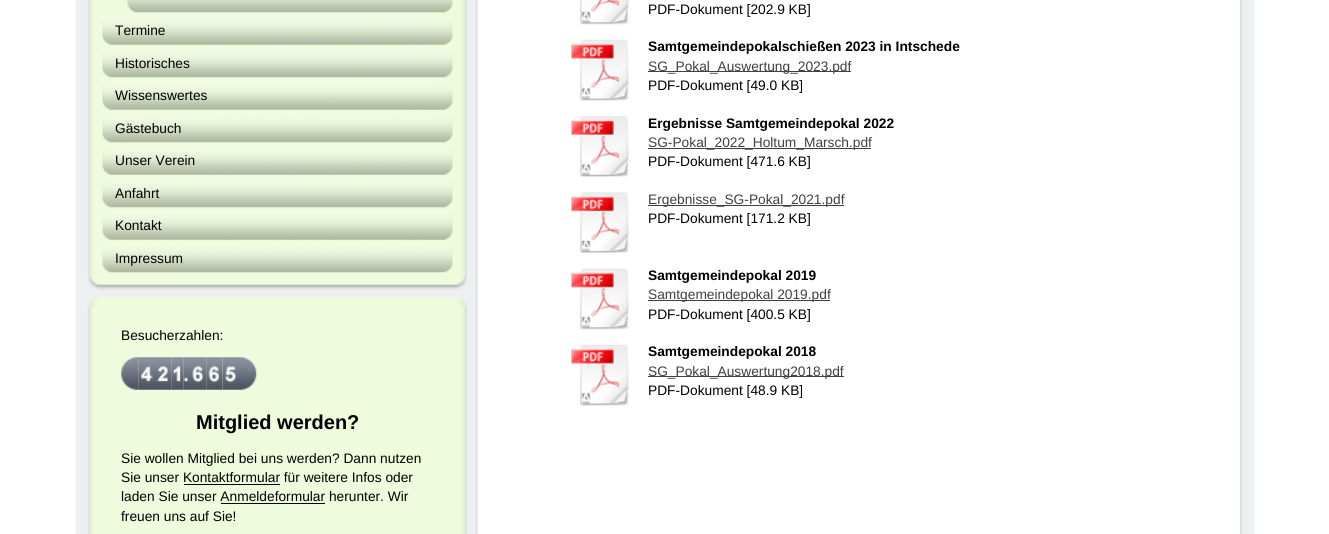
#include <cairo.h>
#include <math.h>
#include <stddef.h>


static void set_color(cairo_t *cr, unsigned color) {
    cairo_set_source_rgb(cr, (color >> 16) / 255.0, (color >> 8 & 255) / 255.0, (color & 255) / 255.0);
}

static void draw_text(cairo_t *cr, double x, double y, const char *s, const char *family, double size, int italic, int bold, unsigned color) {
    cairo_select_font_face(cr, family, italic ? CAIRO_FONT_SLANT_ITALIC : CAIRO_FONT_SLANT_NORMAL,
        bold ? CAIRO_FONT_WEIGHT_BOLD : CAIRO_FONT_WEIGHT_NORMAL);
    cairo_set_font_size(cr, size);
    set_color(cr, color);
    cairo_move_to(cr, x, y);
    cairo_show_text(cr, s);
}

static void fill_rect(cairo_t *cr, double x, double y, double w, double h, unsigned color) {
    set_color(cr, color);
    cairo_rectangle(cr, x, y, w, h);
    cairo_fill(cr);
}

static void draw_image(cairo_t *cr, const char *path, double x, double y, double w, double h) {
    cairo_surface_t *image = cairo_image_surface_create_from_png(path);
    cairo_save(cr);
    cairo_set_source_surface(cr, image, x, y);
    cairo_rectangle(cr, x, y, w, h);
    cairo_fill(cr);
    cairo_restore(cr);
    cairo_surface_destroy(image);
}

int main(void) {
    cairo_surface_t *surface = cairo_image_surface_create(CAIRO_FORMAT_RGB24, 1329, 534);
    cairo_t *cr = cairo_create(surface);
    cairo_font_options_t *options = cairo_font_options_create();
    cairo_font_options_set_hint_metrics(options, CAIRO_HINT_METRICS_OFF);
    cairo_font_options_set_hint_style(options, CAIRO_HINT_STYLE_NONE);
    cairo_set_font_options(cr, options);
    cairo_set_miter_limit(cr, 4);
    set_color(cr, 0xFFFFFF);
    cairo_paint(cr);
    draw_image(cr, "assets/img1.png", 75, 0, 1180, 534);
    fill_rect(cr, 90, 0, 375, 290, 0xE2F9C5);
    draw_image(cr, "assets/img2.png", 87, 0, 381, 278);
    draw_image(cr, "assets/img3.png", 127, 0, 326, 13);
    draw_image(cr, "assets/img4.png", 102, 15, 351, 30);
    draw_text(cr, 115, 35, "Termine", "Liberation Sans", 13.75, 0, 0, 0x000000);
    draw_image(cr, "assets/img5.png", 102, 48, 351, 30);
    draw_text(cr, 115, 68, "Historisches", "Liberation Sans", 13.75, 0, 0, 0x000000);
    draw_image(cr, "assets/img4.png", 102, 80, 351, 30);
    draw_text(cr, 115, 100, "Wissenswertes", "Liberation Sans", 13.75, 0, 0, 0x000000);
    draw_image(cr, "assets/img6.png", 102, 113, 351, 30);
    draw_text(cr, 115, 133, "Gästebuch", "Liberation Sans", 13.75, 0, 0, 0x000000);
    draw_image(cr, "assets/img4.png", 102, 145, 351, 30);
    draw_text(cr, 115, 165, "Unser Verein", "Liberation Sans", 13.75, 0, 0, 0x000000);
    draw_image(cr, "assets/img6.png", 102, 178, 351, 30);
    draw_text(cr, 115, 198, "Anfahrt", "Liberation Sans", 13.75, 0, 0, 0x000000);
    draw_image(cr, "assets/img4.png", 102, 210, 351, 30);
    draw_text(cr, 115, 230, "Kontakt", "Liberation Sans", 13.75, 0, 0, 0x000000);
    draw_image(cr, "assets/img6.png", 102, 243, 351, 30);
    draw_text(cr, 115, 263, "Impressum", "Liberation Sans", 13.75, 0, 0, 0x000000);
    draw_image(cr, "assets/img7.png", 88, 277, 379, 13);
    fill_rect(cr, 90, 298, 375, 236, 0xE2F9C5);
    draw_image(cr, "assets/img8.png", 88, 297, 379, 11);
    draw_image(cr, "assets/img9.png", 87, 307, 381, 227);
    draw_text(cr, 121, 340, "Besucherzahlen:", "Liberation Sans", 13.75, 0, 0, 0x000000);
    draw_image(cr, "assets/img10.png", 121, 357, 18, 33);
    draw_image(cr, "assets/img11.png", 138, 357, 17, 33);
    draw_image(cr, "assets/img12.png", 155, 357, 17, 33);
    draw_image(cr, "assets/img13.png", 171, 357, 13, 33);
    draw_image(cr, "assets/img14.png", 183, 357, 7, 33);
    draw_image(cr, "assets/img15.png", 190, 357, 17, 33);
    draw_image(cr, "assets/img16.png", 206, 357, 17, 33);
    draw_image(cr, "assets/img17.png", 222, 357, 18, 33);
    draw_image(cr, "assets/img18.png", 240, 357, 17, 33);
    draw_text(cr, 196, 429, "Mitglied werden?", "Liberation Sans", 20, 0, 1, 0x000000);
    draw_text(cr, 121, 463, "Sie wollen Mitglied bei uns werden? Dann nutzen", "Liberation Sans", 13.75, 0, 0, 0x000000);
    draw_text(cr, 121, 482, "Sie unser Kontaktformular für weitere Infos oder", "Liberation Sans", 13.75, 0, 0, 0x000000);
    fill_rect(cr, 184, 484, 96, 1, 0x000000);
    draw_text(cr, 121, 501, "laden Sie unser Anmeldeformular herunter. Wir", "Liberation Sans", 13.75, 0, 0, 0x000000);
    fill_rect(cr, 221, 503, 104, 1, 0x000000);
    draw_text(cr, 121, 521, "freuen uns auf Sie!", "Liberation Sans", 13.75, 0, 0, 0x000000);
    draw_image(cr, "assets/img19.png", 475, 0, 768, 534);
    draw_image(cr, "assets/img20.png", 580, 0, 49, 25);
    draw_text(cr, 648, 14, "PDF-Dokument [202.9 KB]", "Liberation Sans", 13.75, 0, 0, 0x000000);
    draw_image(cr, "assets/img21.png", 571, 39, 58, 62);
    draw_text(cr, 648, 51, "Samtgemeindepokalschießen 2023 in Intschede", "Liberation Sans", 13.75, 0, 1, 0x000000);
    fill_rect(cr, 648, 71, 203, 1, 0x404040);
    draw_text(cr, 648, 71, "SG_Pokal_Auswertung_2023.pdf", "Liberation Sans", 13.75, 0, 0, 0x404040);
    draw_text(cr, 648, 90, "PDF-Dokument [49.0 KB]", "Liberation Sans", 13.75, 0, 0, 0x000000);
    draw_image(cr, "assets/img22.png", 571, 116, 58, 61);
    draw_text(cr, 648, 128, "Ergebnisse Samtgemeindepokal 2022", "Liberation Sans", 13.75, 0, 1, 0x000000);
    fill_rect(cr, 648, 148, 223, 1, 0x404040);
    draw_text(cr, 648, 147, "SG-Pokal_2022_Holtum_Marsch.pdf", "Liberation Sans", 13.75, 0, 0, 0x404040);
    draw_text(cr, 648, 166, "PDF-Dokument [471.6 KB]", "Liberation Sans", 13.75, 0, 0, 0x000000);
    draw_image(cr, "assets/img23.png", 571, 192, 58, 61);
    fill_rect(cr, 648, 205, 196, 1, 0x404040);
    draw_text(cr, 648, 204, "Ergebnisse_SG-Pokal_2021.pdf", "Liberation Sans", 13.75, 0, 0, 0x404040);
    draw_text(cr, 648, 223, "PDF-Dokument [171.2 KB]", "Liberation Sans", 13.75, 0, 0, 0x000000);
    draw_image(cr, "assets/img24.png", 571, 268, 58, 62);
    draw_text(cr, 648, 280, "Samtgemeindepokal 2019", "Liberation Sans", 13.75, 0, 1, 0x000000);
    fill_rect(cr, 648, 300, 182, 1, 0x404040);
    draw_text(cr, 648, 299, "Samtgemeindepokal 2019.pdf", "Liberation Sans", 13.75, 0, 0, 0x404040);
    draw_text(cr, 648, 319, "PDF-Dokument [400.5 KB]", "Liberation Sans", 13.75, 0, 0, 0x000000);
    draw_image(cr, "assets/img25.png", 571, 344, 58, 62);
    draw_text(cr, 648, 356, "Samtgemeindepokal 2018", "Liberation Sans", 13.75, 0, 1, 0x000000);
    fill_rect(cr, 648, 376, 196, 1, 0x404040);
    draw_text(cr, 648, 376, "SG_Pokal_Auswertung2018.pdf", "Liberation Sans", 13.75, 0, 0, 0x404040);
    draw_text(cr, 648, 395, "PDF-Dokument [48.9 KB]", "Liberation Sans", 13.75, 0, 0, 0x000000);
    cairo_surface_write_to_png(surface, "output.png");
    cairo_font_options_destroy(options);
    cairo_destroy(cr);
    cairo_surface_destroy(surface);
    return 0;
}
